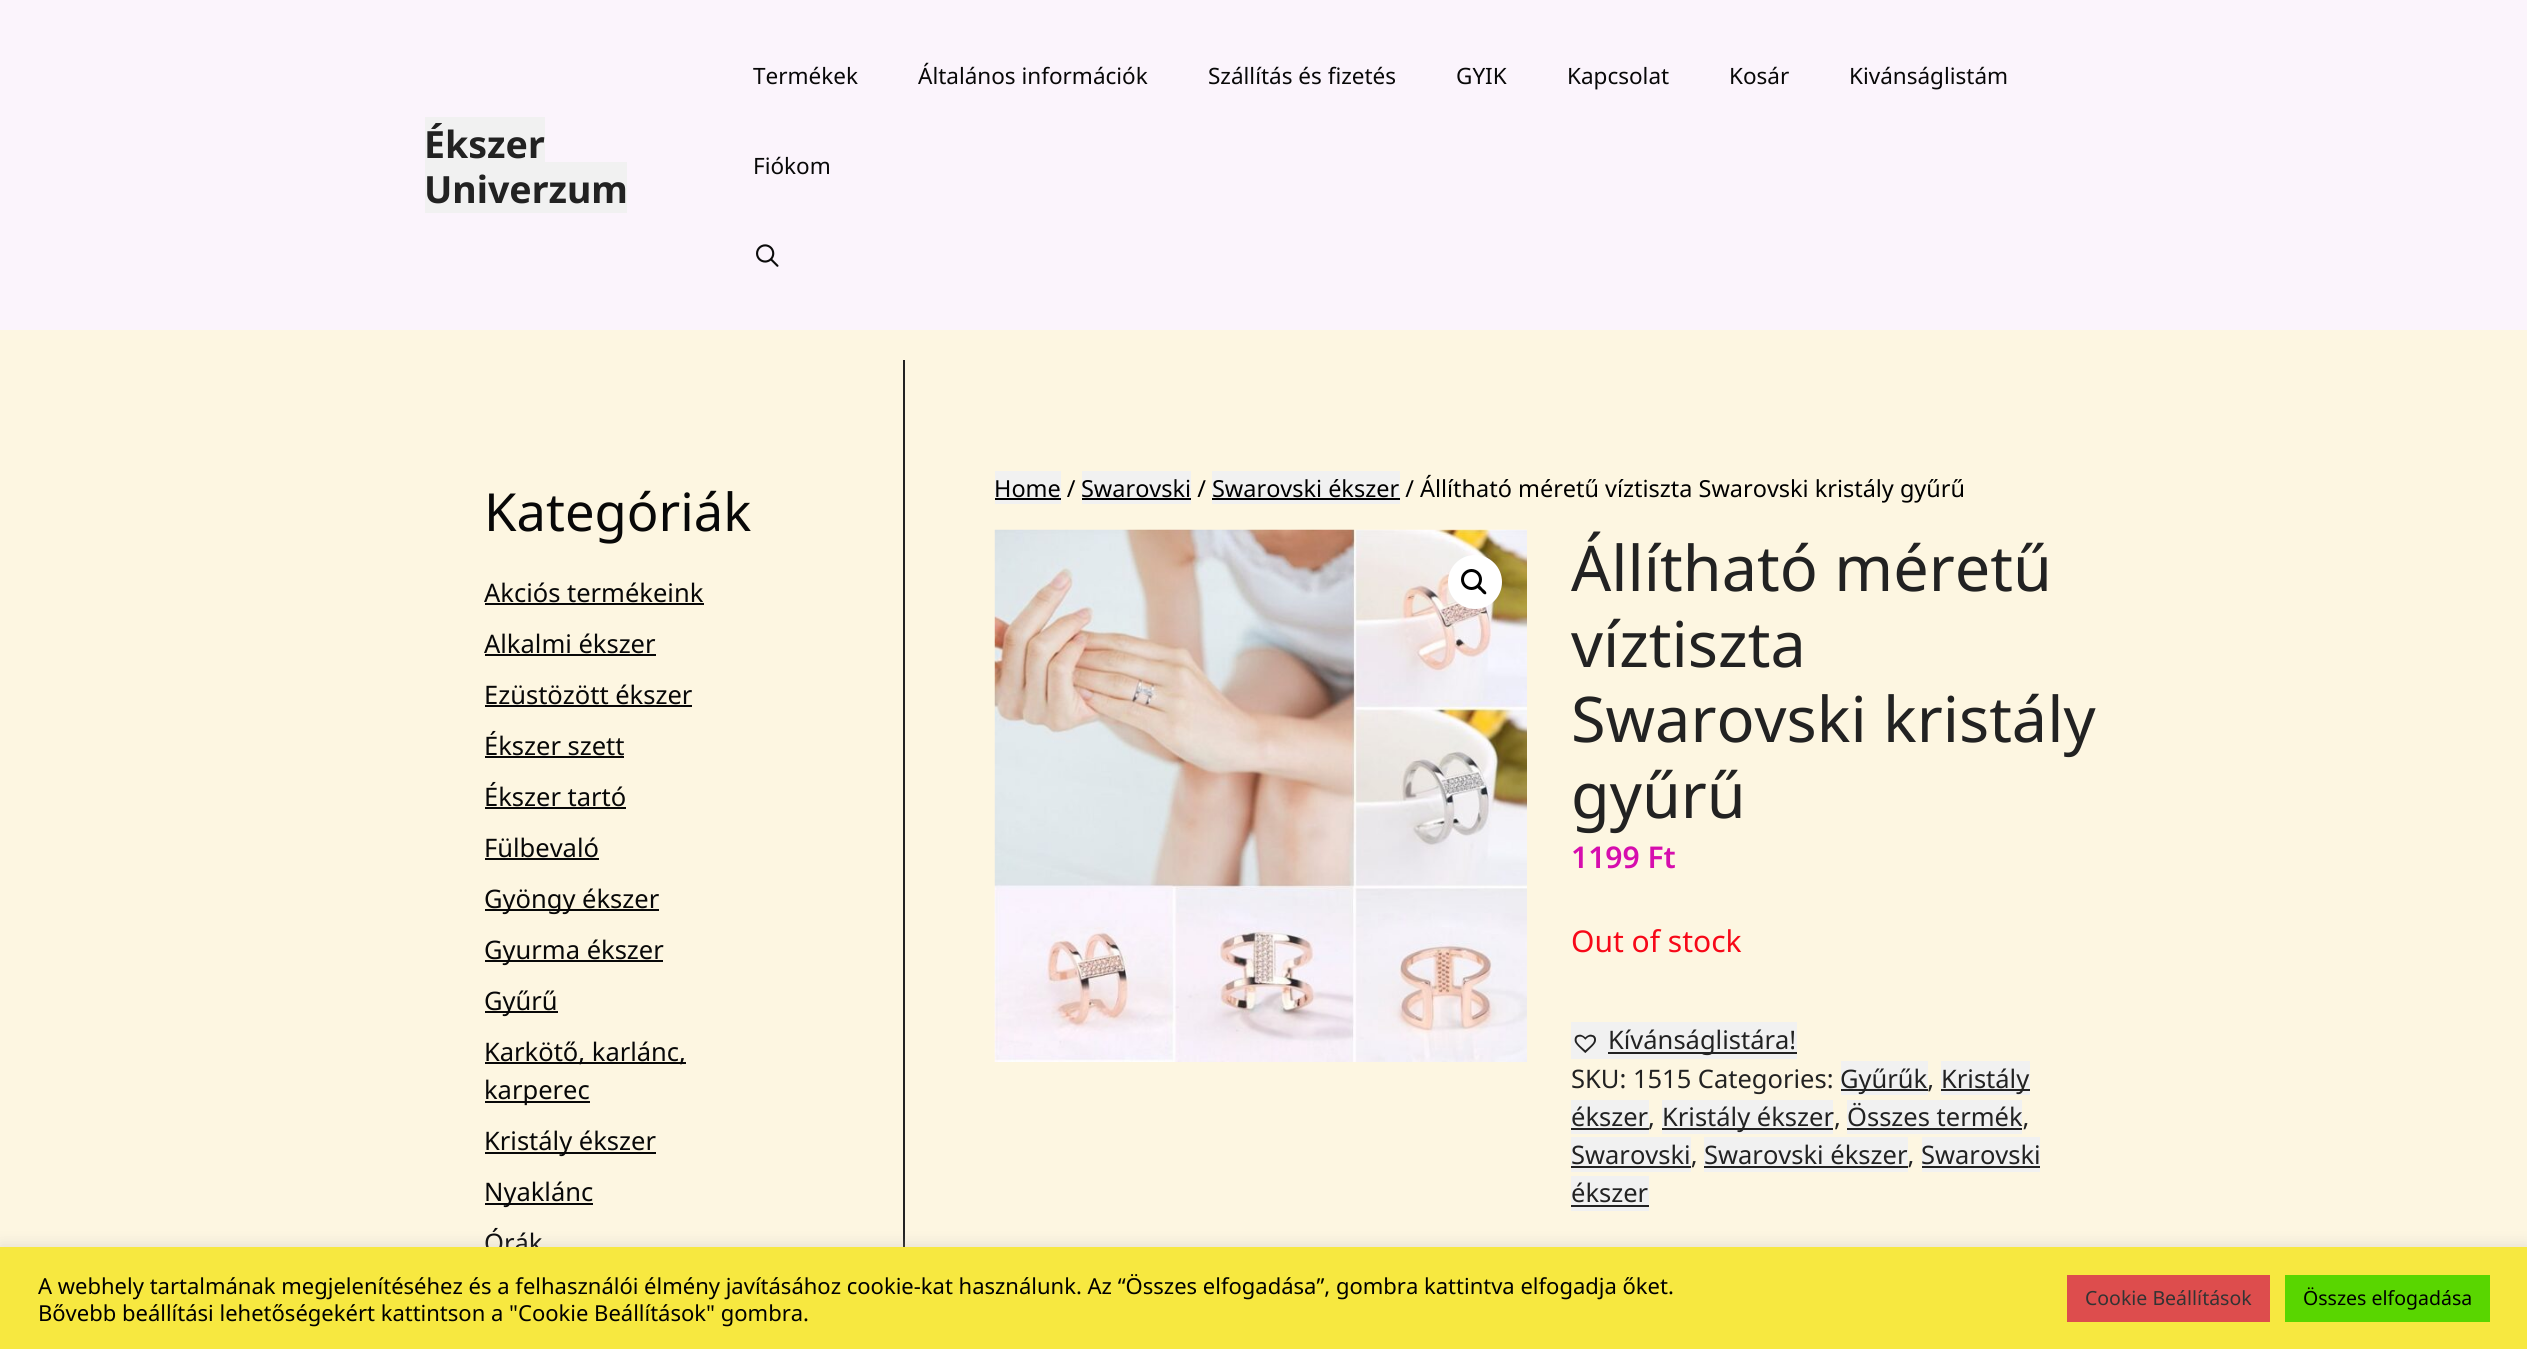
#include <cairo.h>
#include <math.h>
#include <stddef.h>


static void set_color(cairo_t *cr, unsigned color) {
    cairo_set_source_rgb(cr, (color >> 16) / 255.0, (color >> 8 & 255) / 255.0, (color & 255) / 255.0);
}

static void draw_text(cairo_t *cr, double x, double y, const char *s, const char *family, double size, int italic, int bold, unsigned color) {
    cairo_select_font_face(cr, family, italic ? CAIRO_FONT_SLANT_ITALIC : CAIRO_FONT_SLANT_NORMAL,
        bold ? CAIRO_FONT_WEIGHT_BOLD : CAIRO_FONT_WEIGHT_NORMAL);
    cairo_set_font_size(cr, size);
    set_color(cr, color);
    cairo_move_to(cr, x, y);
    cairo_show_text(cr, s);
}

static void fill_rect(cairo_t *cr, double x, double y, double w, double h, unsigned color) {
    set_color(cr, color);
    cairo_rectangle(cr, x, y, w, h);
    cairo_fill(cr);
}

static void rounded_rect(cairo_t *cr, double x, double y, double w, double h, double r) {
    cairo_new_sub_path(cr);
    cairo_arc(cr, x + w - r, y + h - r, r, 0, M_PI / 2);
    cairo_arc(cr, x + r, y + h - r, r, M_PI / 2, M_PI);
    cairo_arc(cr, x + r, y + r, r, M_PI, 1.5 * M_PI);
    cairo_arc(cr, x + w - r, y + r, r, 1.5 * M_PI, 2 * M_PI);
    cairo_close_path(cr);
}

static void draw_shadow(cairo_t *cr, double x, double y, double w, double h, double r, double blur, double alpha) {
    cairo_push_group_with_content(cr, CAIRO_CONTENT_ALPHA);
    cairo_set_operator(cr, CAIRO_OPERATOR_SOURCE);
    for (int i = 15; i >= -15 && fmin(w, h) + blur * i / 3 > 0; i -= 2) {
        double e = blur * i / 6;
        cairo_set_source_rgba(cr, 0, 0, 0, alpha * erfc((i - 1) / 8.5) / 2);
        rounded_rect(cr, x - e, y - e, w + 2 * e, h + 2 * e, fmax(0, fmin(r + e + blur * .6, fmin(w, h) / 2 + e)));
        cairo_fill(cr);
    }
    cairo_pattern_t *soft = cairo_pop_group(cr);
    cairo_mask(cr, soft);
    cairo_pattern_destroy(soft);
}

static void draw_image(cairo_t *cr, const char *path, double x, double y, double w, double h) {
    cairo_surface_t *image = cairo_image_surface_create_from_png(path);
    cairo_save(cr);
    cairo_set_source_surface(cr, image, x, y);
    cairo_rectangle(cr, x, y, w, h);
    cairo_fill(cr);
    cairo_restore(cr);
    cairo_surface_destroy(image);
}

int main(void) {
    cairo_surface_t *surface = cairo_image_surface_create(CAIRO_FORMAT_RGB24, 2527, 1349);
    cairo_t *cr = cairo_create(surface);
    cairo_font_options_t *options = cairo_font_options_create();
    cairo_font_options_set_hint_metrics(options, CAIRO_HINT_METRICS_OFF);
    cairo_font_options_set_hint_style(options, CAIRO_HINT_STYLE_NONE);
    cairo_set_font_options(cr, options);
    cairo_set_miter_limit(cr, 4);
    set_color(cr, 0xFDF6E1);
    cairo_paint(cr);
    fill_rect(cr, 0, 0, 2527, 330, 0xFBF4FC);
    fill_rect(cr, 425, 117, 120, 45, 0xF1F1F1);
    draw_text(cr, 424, 158, "Ékszer", "Noto Sans", 37.5, 0, 1, 0x222222);
    fill_rect(cr, 425, 162, 202, 51, 0xF1F1F1);
    draw_text(cr, 424, 203, "Univerzum", "Noto Sans", 37.5, 0, 1, 0x222222);
    draw_text(cr, 753, 84, "Termékek", "Noto Sans", 22.5, 0, 0, 0x080808);
    draw_text(cr, 918, 84, "Általános információk", "Noto Sans", 22.5, 0, 0, 0x080808);
    draw_text(cr, 1208, 84, "Szállítás és fizetés", "Noto Sans", 22.5, 0, 0, 0x080808);
    draw_text(cr, 1456, 84, "GYIK", "Noto Sans", 22.5, 0, 0, 0x080808);
    draw_text(cr, 1567, 84, "Kapcsolat", "Noto Sans", 22.5, 0, 0, 0x080808);
    draw_text(cr, 1729, 84, "Kosár", "Noto Sans", 22.5, 0, 0, 0x080808);
    draw_text(cr, 1849, 84, "Kivánságlistám", "Noto Sans", 22.5, 0, 0, 0x080808);
    draw_text(cr, 753, 174, "Fiókom", "Noto Sans", 22.5, 0, 0, 0x080808);
    draw_image(cr, "assets/img1.png", 756, 244, 23, 23);
    fill_rect(cr, 903, 360, 2, 887, 0x222222);
    draw_text(cr, 484, 531, "Kategóriák", "Noto Sans", 52.5, 0, 0, 0x080808);
    draw_text(cr, 484, 602, "Akciós termékeink", "Noto Sans", 25.5, 0, 0, 0x080808);
    fill_rect(cr, 485, 603, 219, 2, 0x080808);
    draw_text(cr, 484, 653, "Alkalmi ékszer", "Noto Sans", 25.5, 0, 0, 0x080808);
    fill_rect(cr, 485, 654, 171, 2, 0x080808);
    draw_text(cr, 484, 704, "Ezüstözött ékszer", "Noto Sans", 25.5, 0, 0, 0x080808);
    fill_rect(cr, 485, 705, 207, 2, 0x080808);
    draw_text(cr, 484, 755, "Ékszer szett", "Noto Sans", 25.5, 0, 0, 0x080808);
    fill_rect(cr, 485, 756, 139, 2, 0x080808);
    draw_text(cr, 484, 806, "Ékszer tartó", "Noto Sans", 25.5, 0, 0, 0x080808);
    fill_rect(cr, 485, 807, 141, 2, 0x080808);
    draw_text(cr, 484, 857, "Fülbevaló", "Noto Sans", 25.5, 0, 0, 0x080808);
    fill_rect(cr, 485, 858, 114, 2, 0x080808);
    fill_rect(cr, 485, 909, 174, 2, 0x080808);
    draw_text(cr, 484, 908, "Gyöngy ékszer", "Noto Sans", 25.5, 0, 0, 0x080808);
    fill_rect(cr, 485, 960, 178, 2, 0x080808);
    draw_text(cr, 484, 959, "Gyurma ékszer", "Noto Sans", 25.5, 0, 0, 0x080808);
    fill_rect(cr, 485, 1011, 73, 2, 0x080808);
    draw_text(cr, 484, 1010, "Gyűrű", "Noto Sans", 25.5, 0, 0, 0x080808);
    fill_rect(cr, 485, 1062, 201, 2, 0x080808);
    draw_text(cr, 484, 1061, "Karkötő, karlánc,", "Noto Sans", 25.5, 0, 0, 0x080808);
    fill_rect(cr, 485, 1101, 105, 2, 0x080808);
    draw_text(cr, 484, 1099, "karperec", "Noto Sans", 25.5, 0, 0, 0x080808);
    fill_rect(cr, 485, 1152, 171, 2, 0x080808);
    draw_text(cr, 484, 1150, "Kristály ékszer", "Noto Sans", 25.5, 0, 0, 0x080808);
    fill_rect(cr, 485, 1203, 108, 2, 0x080808);
    draw_text(cr, 484, 1201, "Nyaklánc", "Noto Sans", 25.5, 0, 0, 0x080808);
    draw_text(cr, 484, 1252, "Órák", "Noto Sans", 25.5, 0, 0, 0x080808);
    fill_rect(cr, 995, 471, 66, 33, 0xF1F1F1);
    draw_text(cr, 994, 497, "Home /", "Noto Sans", 23.45, 0, 0, 0x000000);
    fill_rect(cr, 995, 498, 66, 2, 0x000000);
    fill_rect(cr, 1082, 471, 109, 33, 0xF1F1F1);
    draw_text(cr, 1081, 497, "Swarovski /", "Noto Sans", 23.45, 0, 0, 0x000000);
    fill_rect(cr, 1082, 498, 109, 2, 0x000000);
    fill_rect(cr, 1212, 471, 188, 33, 0xF1F1F1);
    fill_rect(cr, 1212, 498, 188, 2, 0x000000);
    draw_text(cr, 1212, 497, "Swarovski ékszer / Állítható méretű víztiszta Swarovski kristály gyűrű", "Noto Sans", 23.45, 0, 0, 0x000000);
    draw_image(cr, "assets/img2.png", 994, 529, 533, 533);
    set_color(cr, 0xFFFFFF);
    cairo_arc(cr, 1475, 582, 27, 0, 2 * M_PI);
    cairo_fill(cr);
    cairo_arc(cr, 1471.5, 579.5, 9, 0, 2 * M_PI);
    set_color(cr, 0x000000);
    cairo_set_line_width(cr, 3);
    cairo_stroke(cr);
    cairo_new_path(cr);
    cairo_move_to(cr, 1477.5, 585.5);
    cairo_curve_to(cr, 1479, 583.5, 1481.5, 587.5, 1482.5, 588.5);
    cairo_curve_to(cr, 1483.5, 589.5, 1487.5, 592, 1486, 594);
    cairo_curve_to(cr, 1484, 595.5, 1481.5, 591.5, 1480.5, 590.5);
    cairo_curve_to(cr, 1479.5, 590, 1475.5, 587, 1477.5, 585.5);
    cairo_close_path(cr);
    cairo_fill(cr);
    draw_text(cr, 1571, 591, "Állítható méretű", "Noto Sans", 63, 0, 0, 0x222222);
    draw_text(cr, 1571, 667, "víztiszta", "Noto Sans", 63, 0, 0, 0x222222);
    draw_text(cr, 1571, 742, "Swarovski kristály", "Noto Sans", 63, 0, 0, 0x222222);
    draw_text(cr, 1571, 818, "gyűrű", "Noto Sans", 63, 0, 0, 0x222222);
    draw_text(cr, 1571, 868, "1199 Ft", "Noto Sans SemiBold", 30, 0, 0, 0xD60DAE);
    draw_text(cr, 1571, 952, "Out of stock", "Noto Sans", 30, 0, 0, 0xF70818);
    fill_rect(cr, 1571, 1022, 226, 37, 0xF1F1F1);
    draw_image(cr, "assets/img3.png", 1574, 1034, 22, 19);
    fill_rect(cr, 1608, 1052, 189, 2, 0x222222);
    draw_text(cr, 1608, 1049, "Kívánságlistára!", "Noto Sans", 25.5, 0, 0, 0x222222);
    draw_text(cr, 1571, 1088, "SKU: 1515 Categories:", "Noto Sans", 25.5, 0, 0, 0x222222);
    fill_rect(cr, 1841, 1061, 87, 34, 0xF1F1F1);
    fill_rect(cr, 1841, 1089, 87, 2, 0x222222);
    draw_text(cr, 1840, 1088, "Gyűrűk,", "Noto Sans", 25.5, 0, 0, 0x222222);
    fill_rect(cr, 1941, 1061, 89, 34, 0xF1F1F1);
    fill_rect(cr, 1941, 1089, 89, 2, 0x222222);
    draw_text(cr, 1941, 1088, "Kristály", "Noto Sans", 25.5, 0, 0, 0x222222);
    fill_rect(cr, 1571, 1100, 78, 34, 0xF1F1F1);
    fill_rect(cr, 1571, 1128, 78, 2, 0x222222);
    draw_text(cr, 1571, 1126, "ékszer,", "Noto Sans", 25.5, 0, 0, 0x222222);
    fill_rect(cr, 1662, 1100, 171, 34, 0xF1F1F1);
    fill_rect(cr, 1662, 1128, 171, 2, 0x222222);
    draw_text(cr, 1662, 1126, "Kristály ékszer,", "Noto Sans", 25.5, 0, 0, 0x222222);
    fill_rect(cr, 1847, 1100, 175, 34, 0xF1F1F1);
    fill_rect(cr, 1847, 1128, 175, 2, 0x222222);
    draw_text(cr, 1847, 1126, "Összes termék,", "Noto Sans", 25.5, 0, 0, 0x222222);
    fill_rect(cr, 1571, 1137, 120, 35, 0xF1F1F1);
    fill_rect(cr, 1571, 1166, 120, 2, 0x222222);
    draw_text(cr, 1571, 1164, "Swarovski,", "Noto Sans", 25.5, 0, 0, 0x222222);
    fill_rect(cr, 1704, 1137, 204, 35, 0xF1F1F1);
    fill_rect(cr, 1704, 1166, 204, 2, 0x222222);
    draw_text(cr, 1704, 1164, "Swarovski ékszer,", "Noto Sans", 25.5, 0, 0, 0x222222);
    fill_rect(cr, 1922, 1137, 118, 35, 0xF1F1F1);
    draw_text(cr, 1921, 1164, "Swarovski", "Noto Sans", 25.5, 0, 0, 0x222222);
    fill_rect(cr, 1922, 1166, 118, 2, 0x222222);
    fill_rect(cr, 1571, 1176, 78, 35, 0xF1F1F1);
    draw_text(cr, 1571, 1202, "ékszer", "Noto Sans", 25.5, 0, 0, 0x222222);
    fill_rect(cr, 1571, 1205, 78, 2, 0x222222);
    set_color(cr, 0xACABAB);
    draw_shadow(cr, 0, 1245, 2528, 104, 0, 7.5, 0.3);
    fill_rect(cr, 0, 1247, 2527, 102, 0xF7E840);
    draw_text(cr, 38, 1294, "A webhely tartalmának megjelenítéséhez és a felhasználói élmény javításához cookie-kat használunk. Az “Összes elfogadása”, gombra kattintva elfogadja őket.", "Noto Sans", 22, 0, 0, 0x000000);
    draw_text(cr, 38, 1321, "Bővebb beállítási lehetőségekért kattintson a \"Cookie Beállítások\" gombra.", "Noto Sans", 22, 0, 0, 0x000000);
    fill_rect(cr, 2067, 1275, 203, 47, 0xDD4D4D);
    draw_text(cr, 2085, 1305, "Cookie Beállítások", "Noto Sans", 19.5, 0, 0, 0x333333);
    fill_rect(cr, 2285, 1275, 205, 47, 0x59D600);
    draw_text(cr, 2303, 1305, "Összes elfogadása", "Noto Sans", 19.5, 0, 0, 0x000000);
    cairo_surface_write_to_png(surface, "output.png");
    cairo_font_options_destroy(options);
    cairo_destroy(cr);
    cairo_surface_destroy(surface);
    return 0;
}
